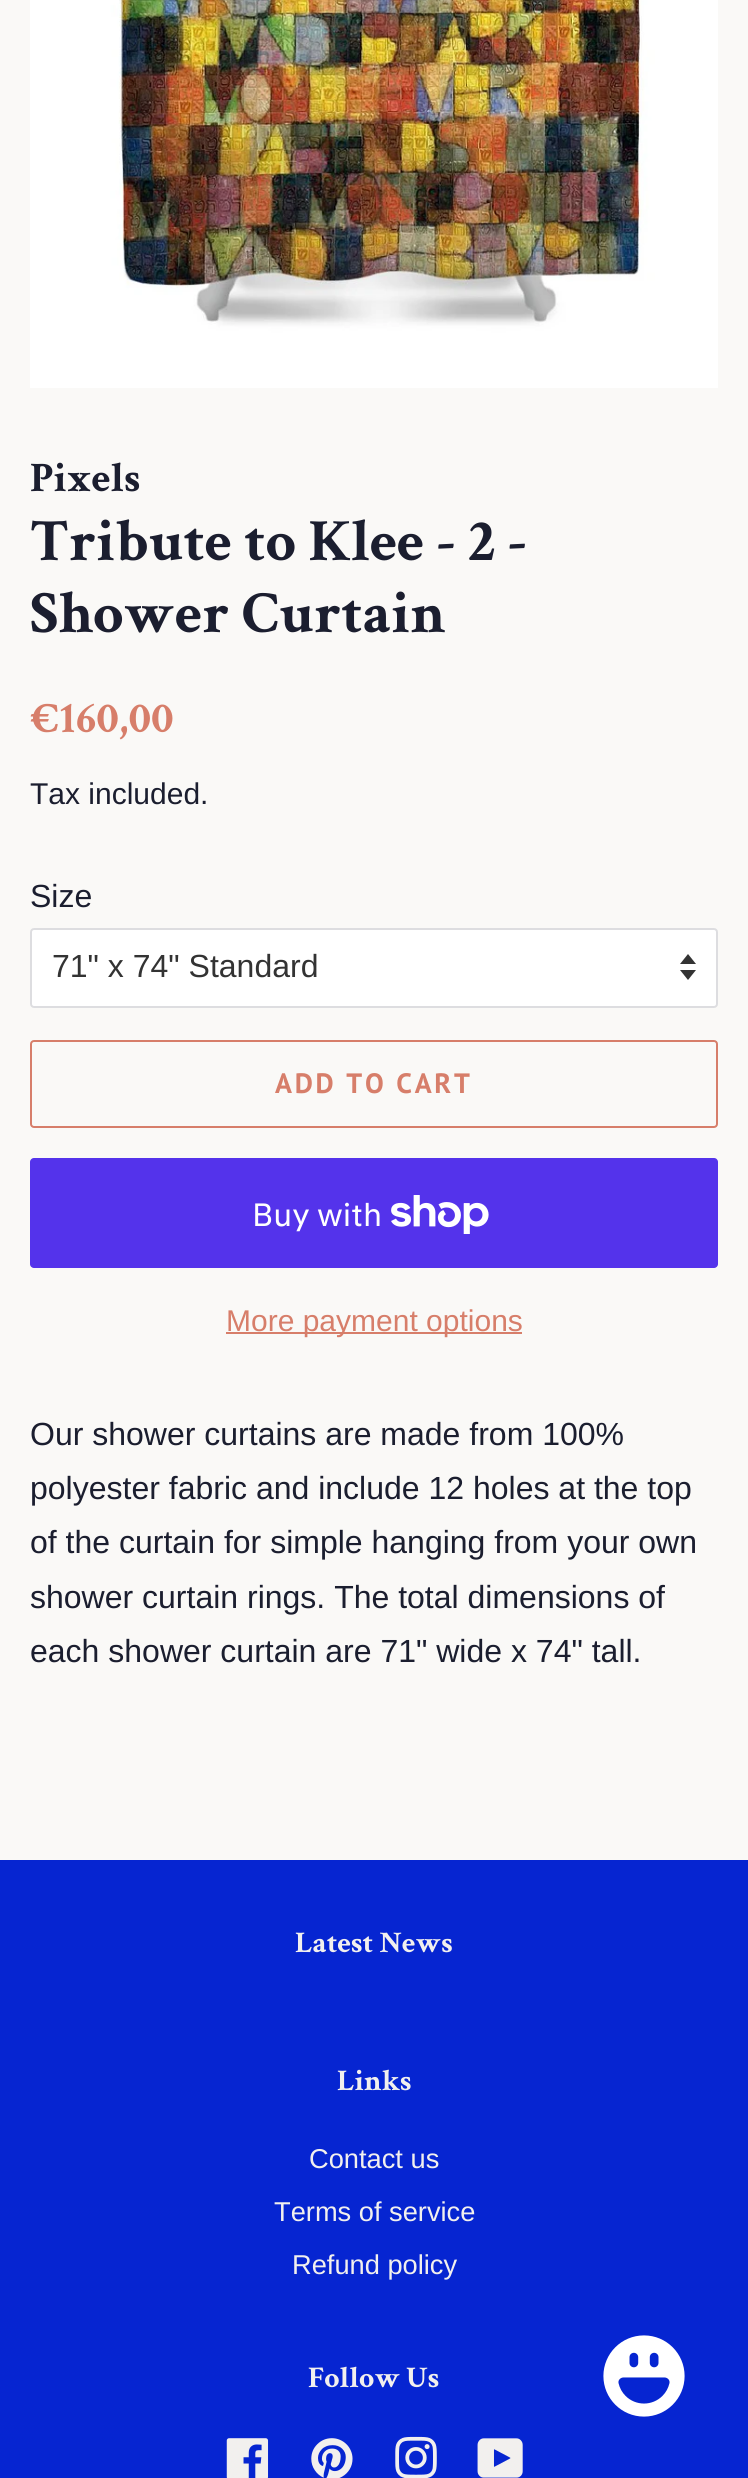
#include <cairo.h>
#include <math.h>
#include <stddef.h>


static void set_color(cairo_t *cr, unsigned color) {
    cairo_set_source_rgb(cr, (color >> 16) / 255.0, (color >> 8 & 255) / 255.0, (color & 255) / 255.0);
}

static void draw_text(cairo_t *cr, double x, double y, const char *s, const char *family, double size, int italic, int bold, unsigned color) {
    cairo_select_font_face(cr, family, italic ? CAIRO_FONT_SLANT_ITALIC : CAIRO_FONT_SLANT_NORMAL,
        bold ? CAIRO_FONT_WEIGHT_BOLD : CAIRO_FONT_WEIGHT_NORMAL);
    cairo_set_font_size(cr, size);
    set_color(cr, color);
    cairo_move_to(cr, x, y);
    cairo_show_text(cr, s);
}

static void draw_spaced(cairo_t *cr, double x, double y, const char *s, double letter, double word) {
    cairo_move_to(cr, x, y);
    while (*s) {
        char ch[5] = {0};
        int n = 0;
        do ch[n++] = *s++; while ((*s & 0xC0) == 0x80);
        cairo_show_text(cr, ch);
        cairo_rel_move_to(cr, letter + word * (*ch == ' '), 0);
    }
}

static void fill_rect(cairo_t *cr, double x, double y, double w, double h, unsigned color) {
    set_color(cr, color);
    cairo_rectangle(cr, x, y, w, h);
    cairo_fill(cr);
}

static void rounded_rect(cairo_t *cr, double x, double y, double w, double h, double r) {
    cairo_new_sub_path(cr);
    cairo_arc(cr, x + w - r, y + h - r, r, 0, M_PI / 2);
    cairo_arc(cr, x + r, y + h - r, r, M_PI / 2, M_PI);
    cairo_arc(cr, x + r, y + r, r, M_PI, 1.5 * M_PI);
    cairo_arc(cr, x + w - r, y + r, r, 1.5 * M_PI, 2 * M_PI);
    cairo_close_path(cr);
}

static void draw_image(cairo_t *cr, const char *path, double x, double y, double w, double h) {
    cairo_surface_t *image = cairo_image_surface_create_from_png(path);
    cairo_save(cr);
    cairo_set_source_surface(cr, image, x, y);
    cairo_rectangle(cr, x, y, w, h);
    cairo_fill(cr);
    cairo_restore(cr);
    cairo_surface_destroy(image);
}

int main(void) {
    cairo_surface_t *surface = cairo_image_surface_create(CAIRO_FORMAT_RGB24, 748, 2478);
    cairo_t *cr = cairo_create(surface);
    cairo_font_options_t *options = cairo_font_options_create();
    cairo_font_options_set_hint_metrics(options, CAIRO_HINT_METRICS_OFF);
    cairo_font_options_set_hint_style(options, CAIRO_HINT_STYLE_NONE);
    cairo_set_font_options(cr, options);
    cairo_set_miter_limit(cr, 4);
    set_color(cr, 0xFAF9F7);
    cairo_paint(cr);
    draw_image(cr, "assets/img1.png", 30, 0, 688, 388);
    draw_text(cr, 30, 491, "Pixels", "Crimson Text", 42, 0, 1, 0x1B1E2F);
    draw_text(cr, 30, 560, "Tribute to Klee - 2 -", "Crimson Text", 60, 0, 1, 0x1B1E2F);
    draw_text(cr, 30, 632, "Shower Curtain", "Crimson Text", 60, 0, 1, 0x1B1E2F);
    draw_text(cr, 30, 732, "€160,00", "Crimson Text", 45, 0, 1, 0xD77E6A);
    draw_text(cr, 30, 804, "Tax included.", "Liberation Sans", 30, 0, 0, 0x1B1E2F);
    draw_text(cr, 30, 907, "Size", "Liberation Sans", 32, 0, 0, 0x1B1E2F);
    set_color(cr, 0xFFFFFF);
    rounded_rect(cr, 30, 928, 688, 80, 4);
    cairo_fill(cr);
    set_color(cr, 0x333333);
    cairo_new_path(cr);
    cairo_move_to(cr, 680, 970);
    cairo_line_to(cr, 688, 980);
    cairo_line_to(cr, 696, 970);
    cairo_close_path(cr);
    cairo_move_to(cr, 688, 954);
    cairo_line_to(cr, 680, 964);
    cairo_line_to(cr, 696, 964);
    cairo_close_path(cr);
    cairo_fill(cr);
    rounded_rect(cr, 31, 929, 686, 78, 3);
    cairo_set_source_rgba(cr, 0.106, 0.118, 0.184, 0.15);
    cairo_stroke(cr);
    draw_text(cr, 52, 977, "71\" x 74\" Standard", "Liberation Sans", 32, 0, 0, 0x333333);
    rounded_rect(cr, 31, 1041, 686, 86, 3);
    set_color(cr, 0xD77E6A);
    cairo_stroke(cr);
    cairo_select_font_face(cr, "PT Sans", CAIRO_FONT_SLANT_NORMAL, CAIRO_FONT_WEIGHT_BOLD);
    cairo_set_font_size(cr, 28);
    draw_spaced(cr, 275, 1093, "ADD TO CART", 2.75, 0);
    set_color(cr, 0x5433EB);
    rounded_rect(cr, 30, 1158, 688, 110, 4);
    cairo_fill(cr);
    draw_text(cr, 252, 1226, "Buy with", "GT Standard", 32, 0, 0, 0xFFFFFF);
    draw_image(cr, "assets/img2.png", 391, 1195, 98, 39);
    fill_rect(cr, 226, 1332, 296, 2, 0xD77E6A);
    draw_text(cr, 226, 1331, "More payment options", "Liberation Sans", 30, 0, 0, 0xD77E6A);
    draw_text(cr, 30, 1445, "Our shower curtains are made from 100%", "Liberation Sans", 32, 0, 0, 0x1B1E2F);
    draw_text(cr, 30, 1499, "polyester fabric and include 12 holes at the top", "Liberation Sans", 32, 0, 0, 0x1B1E2F);
    draw_text(cr, 30, 1553, "of the curtain for simple hanging from your own", "Liberation Sans", 32, 0, 0, 0x1B1E2F);
    draw_text(cr, 30, 1608, "shower curtain rings. The total dimensions of", "Liberation Sans", 32, 0, 0, 0x1B1E2F);
    draw_text(cr, 30, 1662, "each shower curtain are 71\" wide x 74\" tall.", "Liberation Sans", 32, 0, 0, 0x1B1E2F);
    fill_rect(cr, 0, 1860, 748, 618, 0x0625D1);
    draw_text(cr, 295, 1952, "Latest News", "Crimson Text", 30, 0, 1, 0xF2F0EE);
    draw_text(cr, 337, 2090, "Links", "Crimson Text", 30, 0, 1, 0xF2F0EE);
    draw_text(cr, 309, 2168, "Contact us", "Liberation Sans", 27.25, 0, 0, 0xF2F0EE);
    draw_text(cr, 274, 2221, "Terms of service", "Liberation Sans", 27.25, 0, 0, 0xF2F0EE);
    draw_text(cr, 292, 2274, "Refund policy", "Liberation Sans", 27.25, 0, 0, 0xF2F0EE);
    draw_text(cr, 308, 2387, "Follow Us", "Crimson Text", 30, 0, 1, 0xF2F0EE);
    draw_image(cr, "assets/img3.png", 226, 2438, 43, 40);
    draw_image(cr, "assets/img4.png", 311, 2438, 42, 40);
    draw_image(cr, "assets/img5.png", 395, 2436, 42, 42);
    draw_image(cr, "assets/img6.png", 477, 2438, 46, 40);
    draw_image(cr, "assets/img7.png", 603, 2335, 82, 82);
    cairo_surface_write_to_png(surface, "output.png");
    cairo_font_options_destroy(options);
    cairo_destroy(cr);
    cairo_surface_destroy(surface);
    return 0;
}
